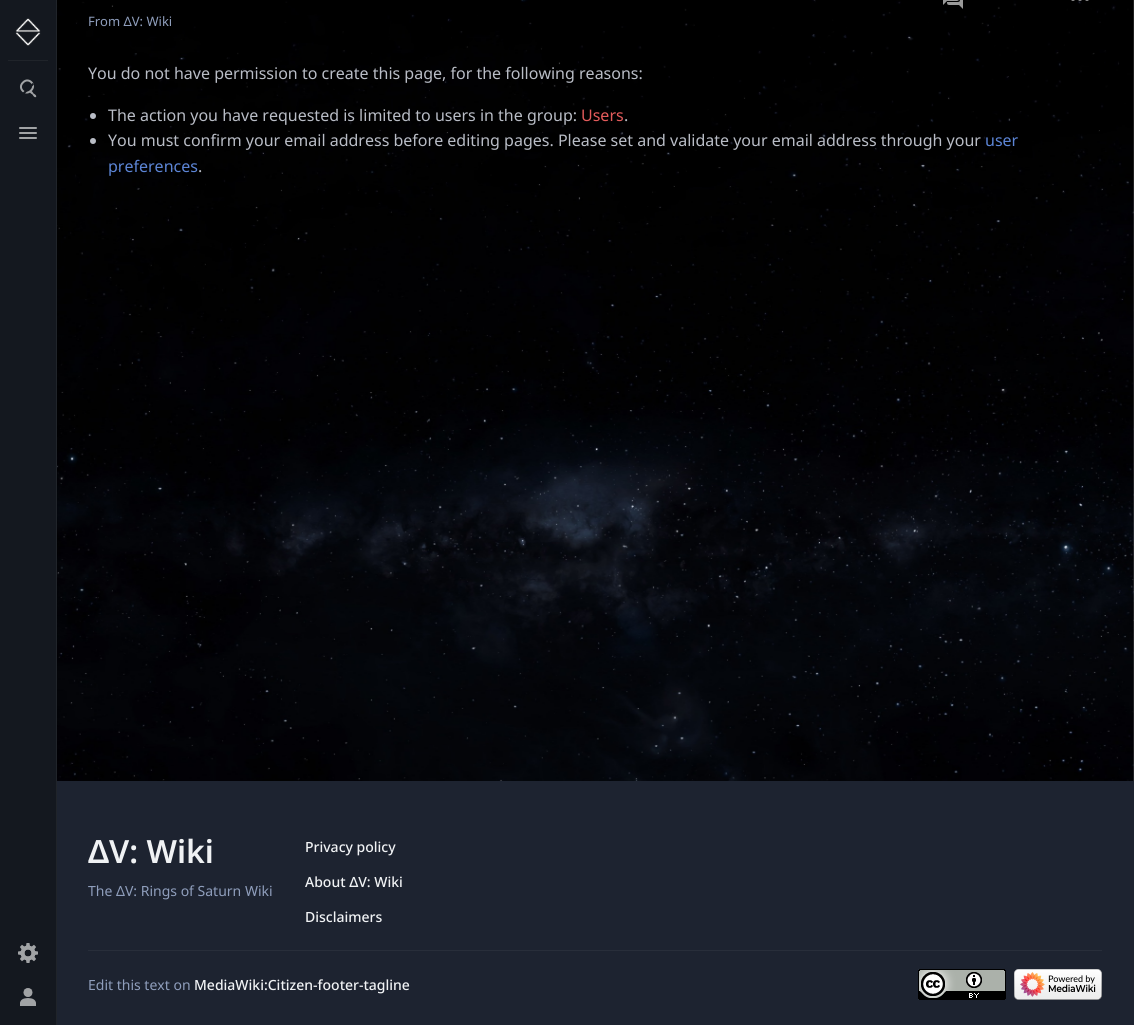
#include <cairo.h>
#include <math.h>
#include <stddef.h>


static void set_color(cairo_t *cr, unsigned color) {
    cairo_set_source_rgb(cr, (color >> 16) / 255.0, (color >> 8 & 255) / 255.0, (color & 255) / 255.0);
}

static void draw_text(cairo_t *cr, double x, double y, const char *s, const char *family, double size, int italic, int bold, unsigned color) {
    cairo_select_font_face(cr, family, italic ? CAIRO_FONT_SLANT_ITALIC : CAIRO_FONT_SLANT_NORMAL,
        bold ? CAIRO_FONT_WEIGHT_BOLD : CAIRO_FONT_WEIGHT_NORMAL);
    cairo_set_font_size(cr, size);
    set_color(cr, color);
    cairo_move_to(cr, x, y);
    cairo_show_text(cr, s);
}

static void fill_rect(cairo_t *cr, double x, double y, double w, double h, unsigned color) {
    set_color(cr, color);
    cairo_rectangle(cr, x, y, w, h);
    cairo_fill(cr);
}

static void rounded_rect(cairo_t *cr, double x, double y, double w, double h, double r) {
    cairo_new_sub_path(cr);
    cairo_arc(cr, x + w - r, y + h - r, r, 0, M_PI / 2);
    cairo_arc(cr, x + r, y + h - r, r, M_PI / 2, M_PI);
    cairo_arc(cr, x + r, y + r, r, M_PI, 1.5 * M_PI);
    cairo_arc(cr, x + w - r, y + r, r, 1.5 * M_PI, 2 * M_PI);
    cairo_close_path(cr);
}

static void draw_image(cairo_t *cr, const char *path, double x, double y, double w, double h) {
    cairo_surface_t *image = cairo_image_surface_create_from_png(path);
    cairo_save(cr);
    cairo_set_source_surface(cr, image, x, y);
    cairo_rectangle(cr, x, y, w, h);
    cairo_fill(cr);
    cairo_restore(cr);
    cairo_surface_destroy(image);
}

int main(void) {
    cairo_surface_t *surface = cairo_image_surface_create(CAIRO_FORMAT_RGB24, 1134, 1025);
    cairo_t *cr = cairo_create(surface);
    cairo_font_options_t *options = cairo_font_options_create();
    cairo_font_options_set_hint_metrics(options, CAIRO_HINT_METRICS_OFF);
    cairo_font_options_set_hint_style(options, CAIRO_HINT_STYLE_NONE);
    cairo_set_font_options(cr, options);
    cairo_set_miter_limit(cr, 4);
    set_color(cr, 0xFFFFFF);
    cairo_paint(cr);
    draw_image(cr, "assets/img1.png", 57, 0, 1077, 781);
    fill_rect(cr, 0, 0, 56, 1025, 0x14181F);
    fill_rect(cr, 56, 0, 1, 1025, 0x20242A);
    fill_rect(cr, 8, 60, 40, 1, 0x20242A);
    draw_image(cr, "assets/img2.png", 15, 18, 26, 28);
    set_color(cr, 0xA1A3A5);
    cairo_new_path(cr);
    cairo_move_to(cr, 30, 91);
    cairo_curve_to(cr, 31.5, 90, 33, 92.5, 33.5, 93.5);
    cairo_curve_to(cr, 34.5, 94, 37, 95.5, 36, 97);
    cairo_curve_to(cr, 34.5, 98, 33, 95.5, 32.5, 94.5);
    cairo_curve_to(cr, 31.5, 94, 29, 92.5, 30, 91);
    cairo_close_path(cr);
    cairo_fill(cr);
    cairo_new_path(cr);
    cairo_move_to(cr, 23, 82.5);
    cairo_curve_to(cr, 28.5, 76.5, 37, 85, 31, 90.5);
    cairo_curve_to(cr, 25.5, 96.5, 17, 88, 23, 82.5);
    cairo_close_path(cr);
    cairo_stroke(cr);
    set_color(cr, 0x14181F);
    cairo_new_path(cr);
    cairo_move_to(cr, 22.5, 94.5);
    cairo_curve_to(cr, 22, 94.5, 22, 93.5, 22.5, 93);
    cairo_line_to(cr, 32, 83.5);
    cairo_curve_to(cr, 32.5, 83, 33.5, 83, 33.5, 83.5);
    cairo_curve_to(cr, 34, 83.5, 34, 84.5, 33.5, 85);
    cairo_line_to(cr, 24, 94.5);
    cairo_curve_to(cr, 23.5, 95, 22.5, 95, 22.5, 94.5);
    cairo_close_path(cr);
    cairo_fill(cr);
    set_color(cr, 0xA1A3A5);
    rounded_rect(cr, 19, 127, 18, 2, 1);
    cairo_fill(cr);
    rounded_rect(cr, 19, 132, 18, 2, 1);
    cairo_fill(cr);
    rounded_rect(cr, 19, 137, 18, 2, 1);
    cairo_fill(cr);
    draw_image(cr, "assets/img3.png", 18, 943, 20, 20);
    draw_image(cr, "assets/img4.png", 20, 988, 16, 18);
    draw_image(cr, "assets/img5.png", 943, 0, 20, 9);
    draw_image(cr, "assets/img6.png", 1071, 0, 18, 1);
    draw_text(cr, 88, 26, "From ΔV: Wiki", "Noto Sans", 13, 0, 0, 0x8F9EBC);
    draw_text(cr, 88, 79, "You do not have permission to create this page, for the following reasons:", "Noto Sans", 16, 0, 0, 0xB9BDC6);
    cairo_new_path(cr);
    cairo_arc(cr, 93, 116, 3, 0, 2 * M_PI);
    cairo_fill(cr);
    draw_text(cr, 108, 121, "The action you have requested is limited to users in the group:", "Noto Sans", 16, 0, 0, 0xB9BDC6);
    draw_text(cr, 581, 121, "Users", "Noto Sans", 16, 0, 0, 0xE35B5B);
    draw_text(cr, 624, 121, ".", "Noto Sans", 16, 0, 0, 0xB9BDC6);
    cairo_new_path(cr);
    cairo_arc(cr, 93, 141, 3, 0, 2 * M_PI);
    cairo_fill(cr);
    draw_text(cr, 108, 146, "You must confirm your email address before editing pages. Please set and validate your email address through your", "Noto Sans", 16, 0, 0, 0xB9BDC6);
    draw_text(cr, 985, 146, "user", "Noto Sans", 16, 0, 0, 0x5C85D6);
    draw_text(cr, 108, 172, "preferences", "Noto Sans", 16, 0, 0, 0x5C85D6);
    draw_text(cr, 198, 172, ".", "Noto Sans", 16, 0, 0, 0xB9BDC6);
    fill_rect(cr, 57, 781, 1077, 244, 0x1D2330);
    draw_text(cr, 88, 863, "ΔV: Wiki", "Noto Sans SemiBold", 32, 0, 0, 0xF0F2F4);
    draw_text(cr, 88, 896, "The ΔV: Rings of Saturn Wiki", "Noto Sans", 14, 0, 0, 0x8F9EBC);
    draw_text(cr, 305, 852, "Privacy policy", "Noto Sans Medium", 14, 0, 0, 0xF0F2F4);
    draw_text(cr, 305, 887, "About ΔV: Wiki", "Noto Sans Medium", 14, 0, 0, 0xF0F2F4);
    draw_text(cr, 305, 922, "Disclaimers", "Noto Sans Medium", 14, 0, 0, 0xF0F2F4);
    fill_rect(cr, 88, 950, 1014, 1, 0x282E3A);
    draw_text(cr, 88, 990, "Edit this text on", "Noto Sans", 14, 0, 0, 0x8F9EBC);
    draw_text(cr, 194, 990, "MediaWiki:Citizen-footer-tagline", "Noto Sans Medium", 14, 0, 0, 0xF0F2F4);
    draw_image(cr, "assets/img7.png", 918, 969, 88, 31);
    draw_image(cr, "assets/img8.png", 1014, 969, 88, 31);
    cairo_surface_write_to_png(surface, "output.png");
    cairo_font_options_destroy(options);
    cairo_destroy(cr);
    cairo_surface_destroy(surface);
    return 0;
}
